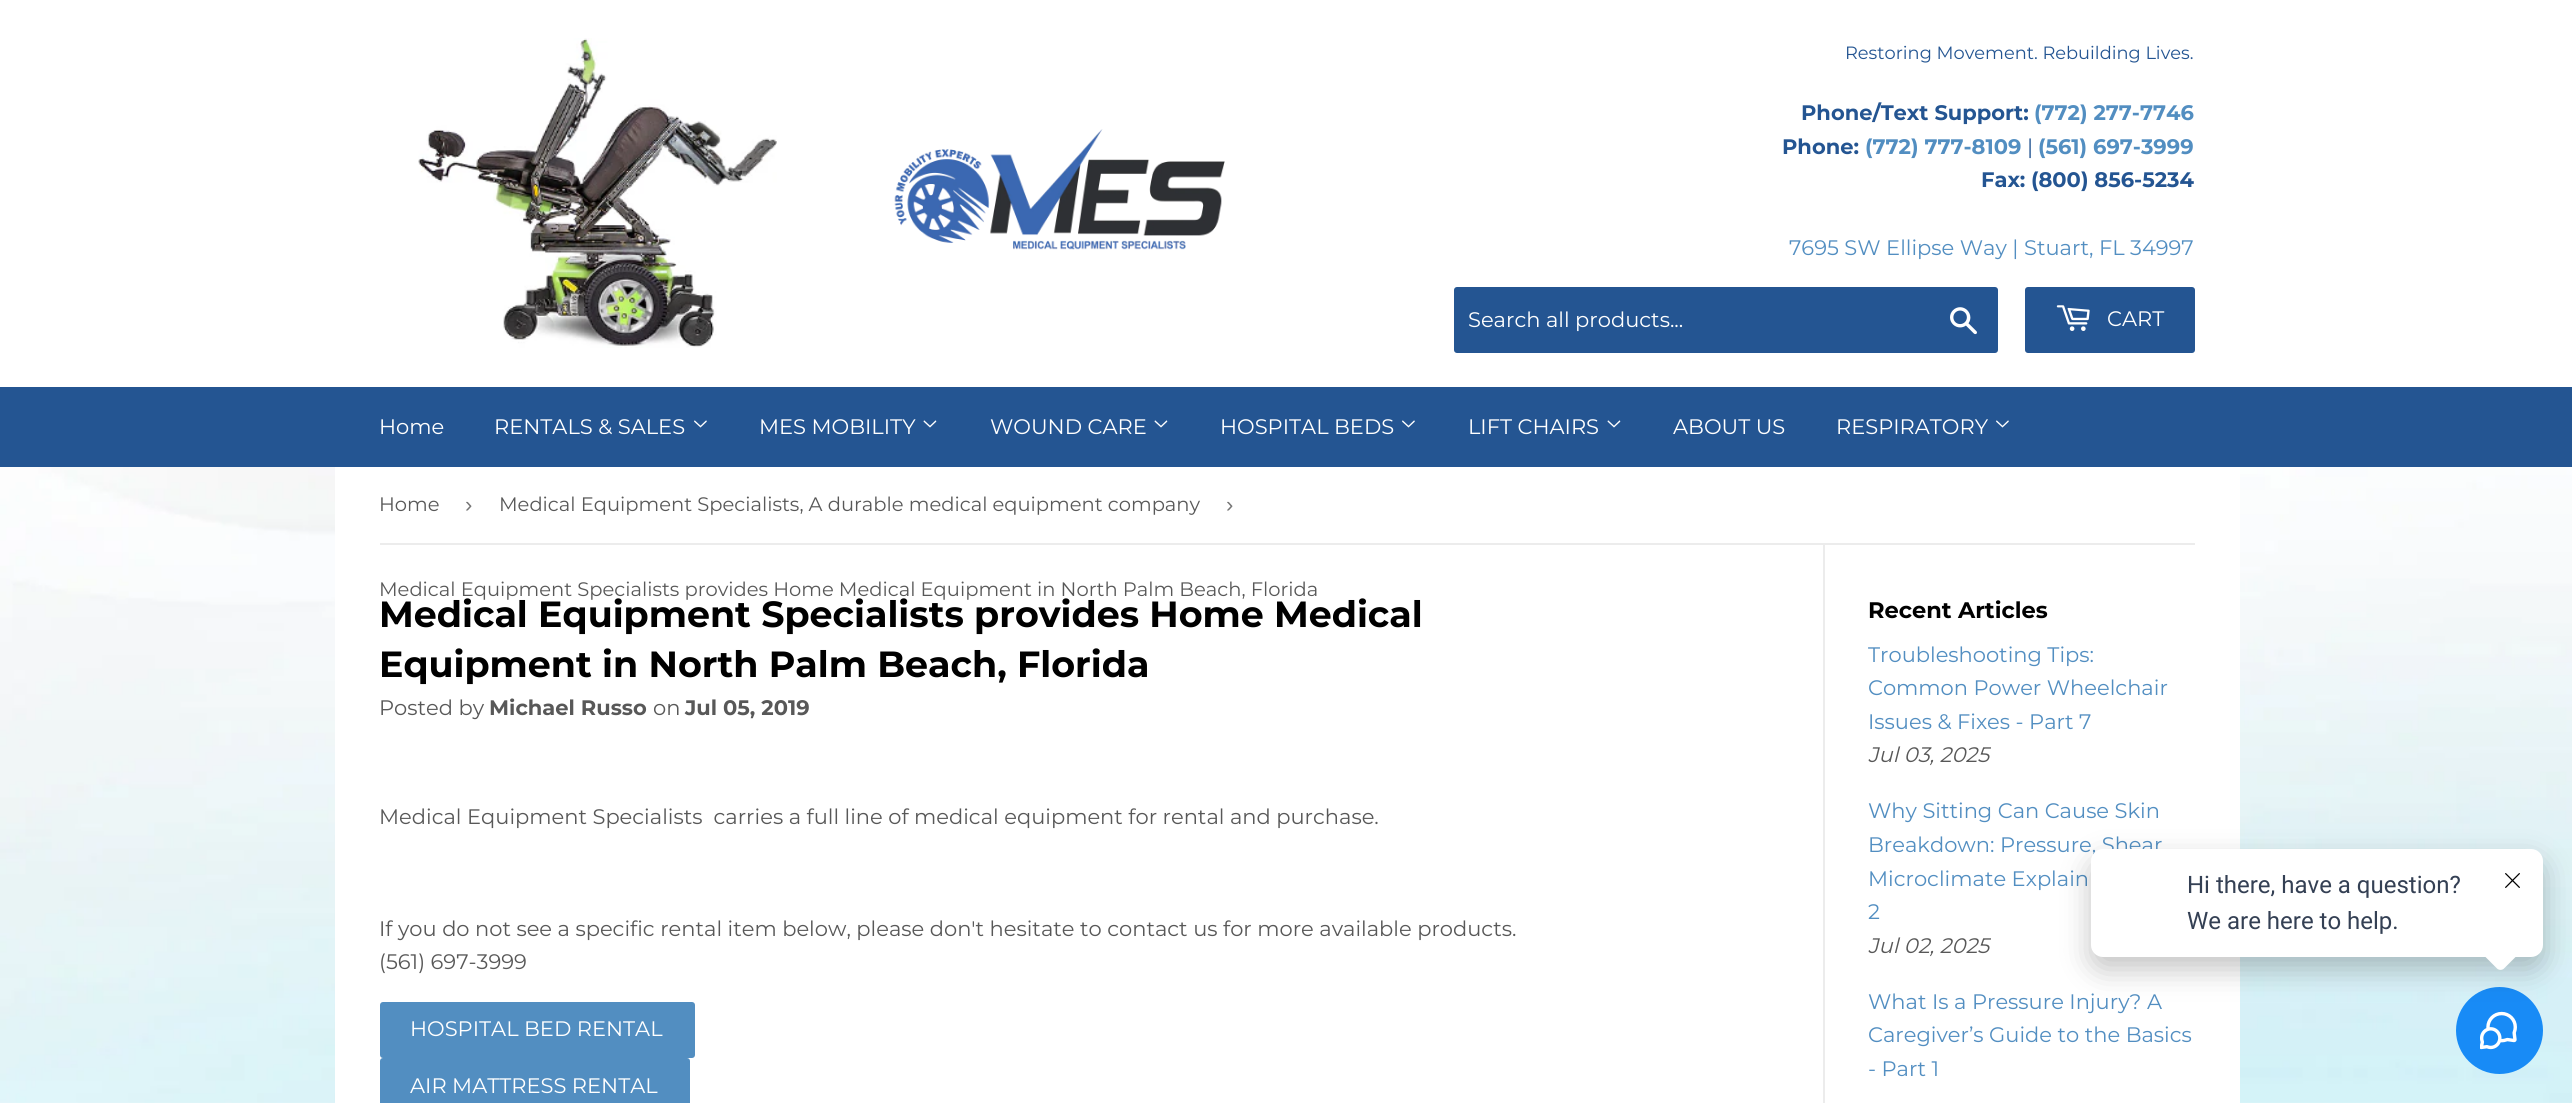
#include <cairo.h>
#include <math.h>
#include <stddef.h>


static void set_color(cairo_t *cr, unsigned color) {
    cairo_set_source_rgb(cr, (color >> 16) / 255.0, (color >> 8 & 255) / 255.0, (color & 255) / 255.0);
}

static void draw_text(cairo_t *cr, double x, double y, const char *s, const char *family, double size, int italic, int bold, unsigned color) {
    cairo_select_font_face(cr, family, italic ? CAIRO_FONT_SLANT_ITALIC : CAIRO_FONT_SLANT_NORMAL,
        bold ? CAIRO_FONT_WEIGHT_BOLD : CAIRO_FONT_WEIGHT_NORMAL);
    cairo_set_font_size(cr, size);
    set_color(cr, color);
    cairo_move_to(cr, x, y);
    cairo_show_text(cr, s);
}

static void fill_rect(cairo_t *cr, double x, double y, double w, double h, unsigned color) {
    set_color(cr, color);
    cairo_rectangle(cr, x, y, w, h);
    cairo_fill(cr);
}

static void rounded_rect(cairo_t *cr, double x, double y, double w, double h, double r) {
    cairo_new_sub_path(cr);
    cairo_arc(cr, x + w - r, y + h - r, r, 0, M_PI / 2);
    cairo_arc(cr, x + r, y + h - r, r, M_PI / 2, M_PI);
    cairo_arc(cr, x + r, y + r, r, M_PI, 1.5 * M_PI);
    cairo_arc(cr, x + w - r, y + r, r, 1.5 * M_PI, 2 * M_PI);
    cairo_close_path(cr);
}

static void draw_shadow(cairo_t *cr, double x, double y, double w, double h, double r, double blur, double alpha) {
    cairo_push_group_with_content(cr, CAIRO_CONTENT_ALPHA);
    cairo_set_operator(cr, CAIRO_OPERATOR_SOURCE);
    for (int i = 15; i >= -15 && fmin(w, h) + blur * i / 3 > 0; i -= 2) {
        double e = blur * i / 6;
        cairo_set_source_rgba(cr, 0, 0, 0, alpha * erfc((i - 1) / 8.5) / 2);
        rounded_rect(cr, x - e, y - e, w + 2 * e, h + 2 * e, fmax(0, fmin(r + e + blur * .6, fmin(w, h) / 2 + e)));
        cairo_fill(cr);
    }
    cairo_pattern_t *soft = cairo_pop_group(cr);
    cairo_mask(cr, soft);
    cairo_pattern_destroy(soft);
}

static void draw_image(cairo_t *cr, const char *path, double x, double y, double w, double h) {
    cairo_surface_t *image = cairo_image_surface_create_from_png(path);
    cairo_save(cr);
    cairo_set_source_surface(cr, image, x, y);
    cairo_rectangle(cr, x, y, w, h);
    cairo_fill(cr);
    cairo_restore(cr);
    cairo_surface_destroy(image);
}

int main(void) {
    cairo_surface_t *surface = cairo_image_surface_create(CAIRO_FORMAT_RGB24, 2572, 1103);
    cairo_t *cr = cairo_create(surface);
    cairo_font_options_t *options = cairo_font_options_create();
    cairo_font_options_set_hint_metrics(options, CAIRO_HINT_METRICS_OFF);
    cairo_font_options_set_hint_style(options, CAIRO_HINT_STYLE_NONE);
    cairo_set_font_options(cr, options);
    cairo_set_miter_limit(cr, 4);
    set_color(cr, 0xFFFFFF);
    cairo_paint(cr);
    draw_image(cr, "assets/img1.png", 0, 467, 2572, 636);
    draw_image(cr, "assets/img2.png", 418, 38, 359, 310);
    draw_image(cr, "assets/img3.png", 894, 129, 331, 121);
    draw_text(cr, 1845, 59, "Restoring Movement. Rebuilding Lives.", "Montserrat", 17.8, 0, 0, 0x245592);
    draw_text(cr, 1801, 120, "Phone/Text Support:", "Montserrat", 21, 0, 1, 0x245592);
    draw_text(cr, 2034, 120, "(772) 277-7746", "Montserrat", 21, 0, 1, 0x528EC1);
    draw_text(cr, 1782, 154, "Phone:", "Montserrat", 21, 0, 1, 0x245592);
    draw_text(cr, 1865, 154, "(772) 777-8109", "Montserrat", 21, 0, 1, 0x528EC1);
    draw_text(cr, 2027, 154, "|", "Montserrat", 21, 0, 0, 0x245592);
    draw_text(cr, 2038, 154, "(561) 697-3999", "Montserrat", 21, 0, 1, 0x528EC1);
    draw_text(cr, 1981, 187, "Fax:", "Montserrat", 21, 0, 1, 0x245592);
    draw_text(cr, 2031, 187, "(800) 856-5234", "Montserrat", 21, 0, 1, 0x245592);
    draw_text(cr, 1789, 255, "7695 SW Ellipse Way | Stuart, FL 34997", "Montserrat", 21, 0, 0, 0x528EC1);
    set_color(cr, 0x245592);
    rounded_rect(cr, 1454, 287, 544, 66, 3);
    cairo_fill(cr);
    draw_text(cr, 1468, 327, "Search all products...", "Montserrat", 21, 0, 0, 0xFFFFFF);
    draw_image(cr, "assets/img4.png", 1950, 307, 27, 28);
    set_color(cr, 0x245592);
    rounded_rect(cr, 2025, 287, 170, 66, 3);
    cairo_fill(cr);
    draw_image(cr, "assets/img5.png", 2056, 305, 34, 26);
    draw_text(cr, 2107, 326, "CART", "Montserrat", 21, 0, 0, 0xFFFFFF);
    fill_rect(cr, 0, 387, 2572, 80, 0x245592);
    draw_text(cr, 379, 434, "Home", "Montserrat", 21, 0, 0, 0xFFFFFF);
    draw_text(cr, 494, 434, "RENTALS & SALES", "Montserrat", 21, 0, 0, 0xFFFFFF);
    draw_image(cr, "assets/img6.png", 694, 420, 13, 8);
    draw_text(cr, 759, 434, "MES MOBILITY", "Montserrat", 21, 0, 0, 0xFFFFFF);
    draw_image(cr, "assets/img7.png", 923, 420, 14, 8);
    draw_text(cr, 990, 434, "WOUND CARE", "Montserrat", 21, 0, 0, 0xFFFFFF);
    draw_image(cr, "assets/img7.png", 1154, 420, 14, 8);
    draw_text(cr, 1220, 434, "HOSPITAL BEDS", "Montserrat", 21, 0, 0, 0xFFFFFF);
    draw_image(cr, "assets/img6.png", 1402, 420, 13, 8);
    draw_text(cr, 1468, 434, "LIFT CHAIRS", "Montserrat", 21, 0, 0, 0xFFFFFF);
    draw_image(cr, "assets/img7.png", 1607, 420, 14, 8);
    draw_text(cr, 1673, 434, "ABOUT US", "Montserrat", 21, 0, 0, 0xFFFFFF);
    draw_text(cr, 1836, 434, "RESPIRATORY", "Montserrat", 21, 0, 0, 0xFFFFFF);
    draw_image(cr, "assets/img6.png", 1996, 420, 13, 8);
    fill_rect(cr, 335, 467, 1905, 636, 0xFFFFFF);
    fill_rect(cr, 380, 543, 1815, 2, 0xECECEC);
    draw_text(cr, 379, 511, "Home", "Montserrat", 19.5, 0, 0, 0x585858);
    draw_text(cr, 465, 512, "›", "Liberation Sans", 22, 0, 0, 0x767676);
    draw_text(cr, 499, 511, "Medical Equipment Specialists, A durable medical equipment company", "Montserrat", 19.5, 0, 0, 0x585858);
    draw_text(cr, 1226, 512, "›", "Liberation Sans", 22, 0, 0, 0x767676);
    draw_text(cr, 379, 596, "Medical Equipment Specialists provides Home Medical Equipment in North Palm Beach, Florida", "Montserrat", 19.5, 0, 0, 0x585858);
    draw_text(cr, 379, 627, "Medical Equipment Specialists provides Home Medical", "Montserrat", 36.4, 0, 1, 0x000000);
    draw_text(cr, 379, 677, "Equipment in North Palm Beach, Florida", "Montserrat", 36.4, 0, 1, 0x000000);
    draw_text(cr, 379, 715, "Posted by", "Montserrat", 21, 0, 0, 0x585858);
    draw_text(cr, 489, 715, "Michael Russo", "Montserrat", 21, 0, 1, 0x585858);
    draw_text(cr, 653, 715, "on", "Montserrat", 21, 0, 0, 0x585858);
    draw_text(cr, 685, 715, "Jul 05, 2019", "Montserrat", 21, 0, 1, 0x585858);
    draw_text(cr, 379, 824, "Medical Equipment Specialists  carries a full line of medical equipment for rental and purchase.", "Montserrat", 21, 0, 0, 0x585858);
    draw_text(cr, 379, 936, "If you do not see a specific rental item below, please don't hesitate to contact us for more available products.", "Montserrat", 21, 0, 0, 0x585858);
    draw_text(cr, 379, 969, "(561) 697-3999", "Montserrat", 21, 0, 0, 0x585858);
    set_color(cr, 0x528EC1);
    rounded_rect(cr, 380, 1002, 315, 56, 3);
    cairo_fill(cr);
    draw_text(cr, 410, 1036, "HOSPITAL BED RENTAL", "Montserrat", 21, 0, 0, 0xFFFFFF);
    set_color(cr, 0x528EC1);
    rounded_rect(cr, 380, 1058, 310, 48, 3);
    cairo_fill(cr);
    draw_text(cr, 410, 1093, "AIR MATTRESS RENTAL", "Montserrat", 21, 0, 0, 0xFFFFFF);
    fill_rect(cr, 1823, 545, 2, 558, 0xECECEC);
    draw_text(cr, 1868, 618, "Recent Articles", "Montserrat", 22.5, 0, 1, 0x000000);
    draw_text(cr, 1868, 662, "Troubleshooting Tips:", "Montserrat", 21, 0, 0, 0x528EC1);
    draw_text(cr, 1868, 695, "Common Power Wheelchair", "Montserrat", 21, 0, 0, 0x528EC1);
    draw_text(cr, 1868, 729, "Issues & Fixes - Part 7", "Montserrat", 21, 0, 0, 0x528EC1);
    draw_text(cr, 1868, 762, "Jul 03, 2025", "Montserrat", 21, 1, 0, 0x585858);
    draw_text(cr, 1868, 818, "Why Sitting Can Cause Skin", "Montserrat", 21, 0, 0, 0x528EC1);
    draw_text(cr, 1868, 852, "Breakdown: Pressure, Shear", "Montserrat", 21, 0, 0, 0x528EC1);
    draw_text(cr, 1868, 886, "Microclimate Explain", "Montserrat", 21, 0, 0, 0x528EC1);
    draw_text(cr, 1868, 919, "2", "Montserrat", 21, 0, 0, 0x528EC1);
    draw_text(cr, 1868, 953, "Jul 02, 2025", "Montserrat", 21, 1, 0, 0x585858);
    draw_text(cr, 1868, 1009, "What Is a Pressure Injury? A", "Montserrat", 21, 0, 0, 0x528EC1);
    draw_text(cr, 1868, 1042, "Caregiver’s Guide to the Basics", "Montserrat", 21, 0, 0, 0x528EC1);
    draw_text(cr, 1868, 1076, "- Part 1", "Montserrat", 21, 0, 0, 0x528EC1);
    set_color(cr, 0x188BF6);
    cairo_new_path(cr);
    cairo_arc(cr, 2499.5, 1030.5, 43.5, 0, 2 * M_PI);
    cairo_fill(cr);
    draw_image(cr, "assets/img9.png", 2480, 1011, 37, 39);
    set_color(cr, 0x000000);
    draw_shadow(cr, 2091, 861, 452, 108, 12, 15, 0.24);
    set_color(cr, 0xFFFFFF);
    rounded_rect(cr, 2091, 849, 452, 108, 12);
    cairo_fill(cr);
    draw_text(cr, 2187, 893, "Hi there, have a question?", "Roboto", 24, 0, 0, 0x344054);
    draw_text(cr, 2187, 929, "We are here to help.", "Roboto", 24, 0, 0, 0x344054);
    set_color(cr, 0xFFFFFF);
    cairo_new_path(cr);
    cairo_move_to(cr, 2504.5, 934);
    cairo_line_to(cr, 2517.5, 947);
    cairo_curve_to(cr, 2520, 949, 2520, 953, 2517.5, 955);
    cairo_line_to(cr, 2504.5, 968);
    cairo_curve_to(cr, 2502.5, 970.5, 2498.5, 970.5, 2496.5, 968);
    cairo_line_to(cr, 2483.5, 955);
    cairo_curve_to(cr, 2481, 953, 2481, 949, 2483.5, 947);
    cairo_line_to(cr, 2496.5, 934);
    cairo_curve_to(cr, 2498.5, 931.5, 2502.5, 931.5, 2504.5, 934);
    cairo_close_path(cr);
    cairo_fill(cr);
    draw_image(cr, "assets/img8.png", 2505, 873, 15, 15);
    cairo_surface_write_to_png(surface, "output.png");
    cairo_font_options_destroy(options);
    cairo_destroy(cr);
    cairo_surface_destroy(surface);
    return 0;
}
